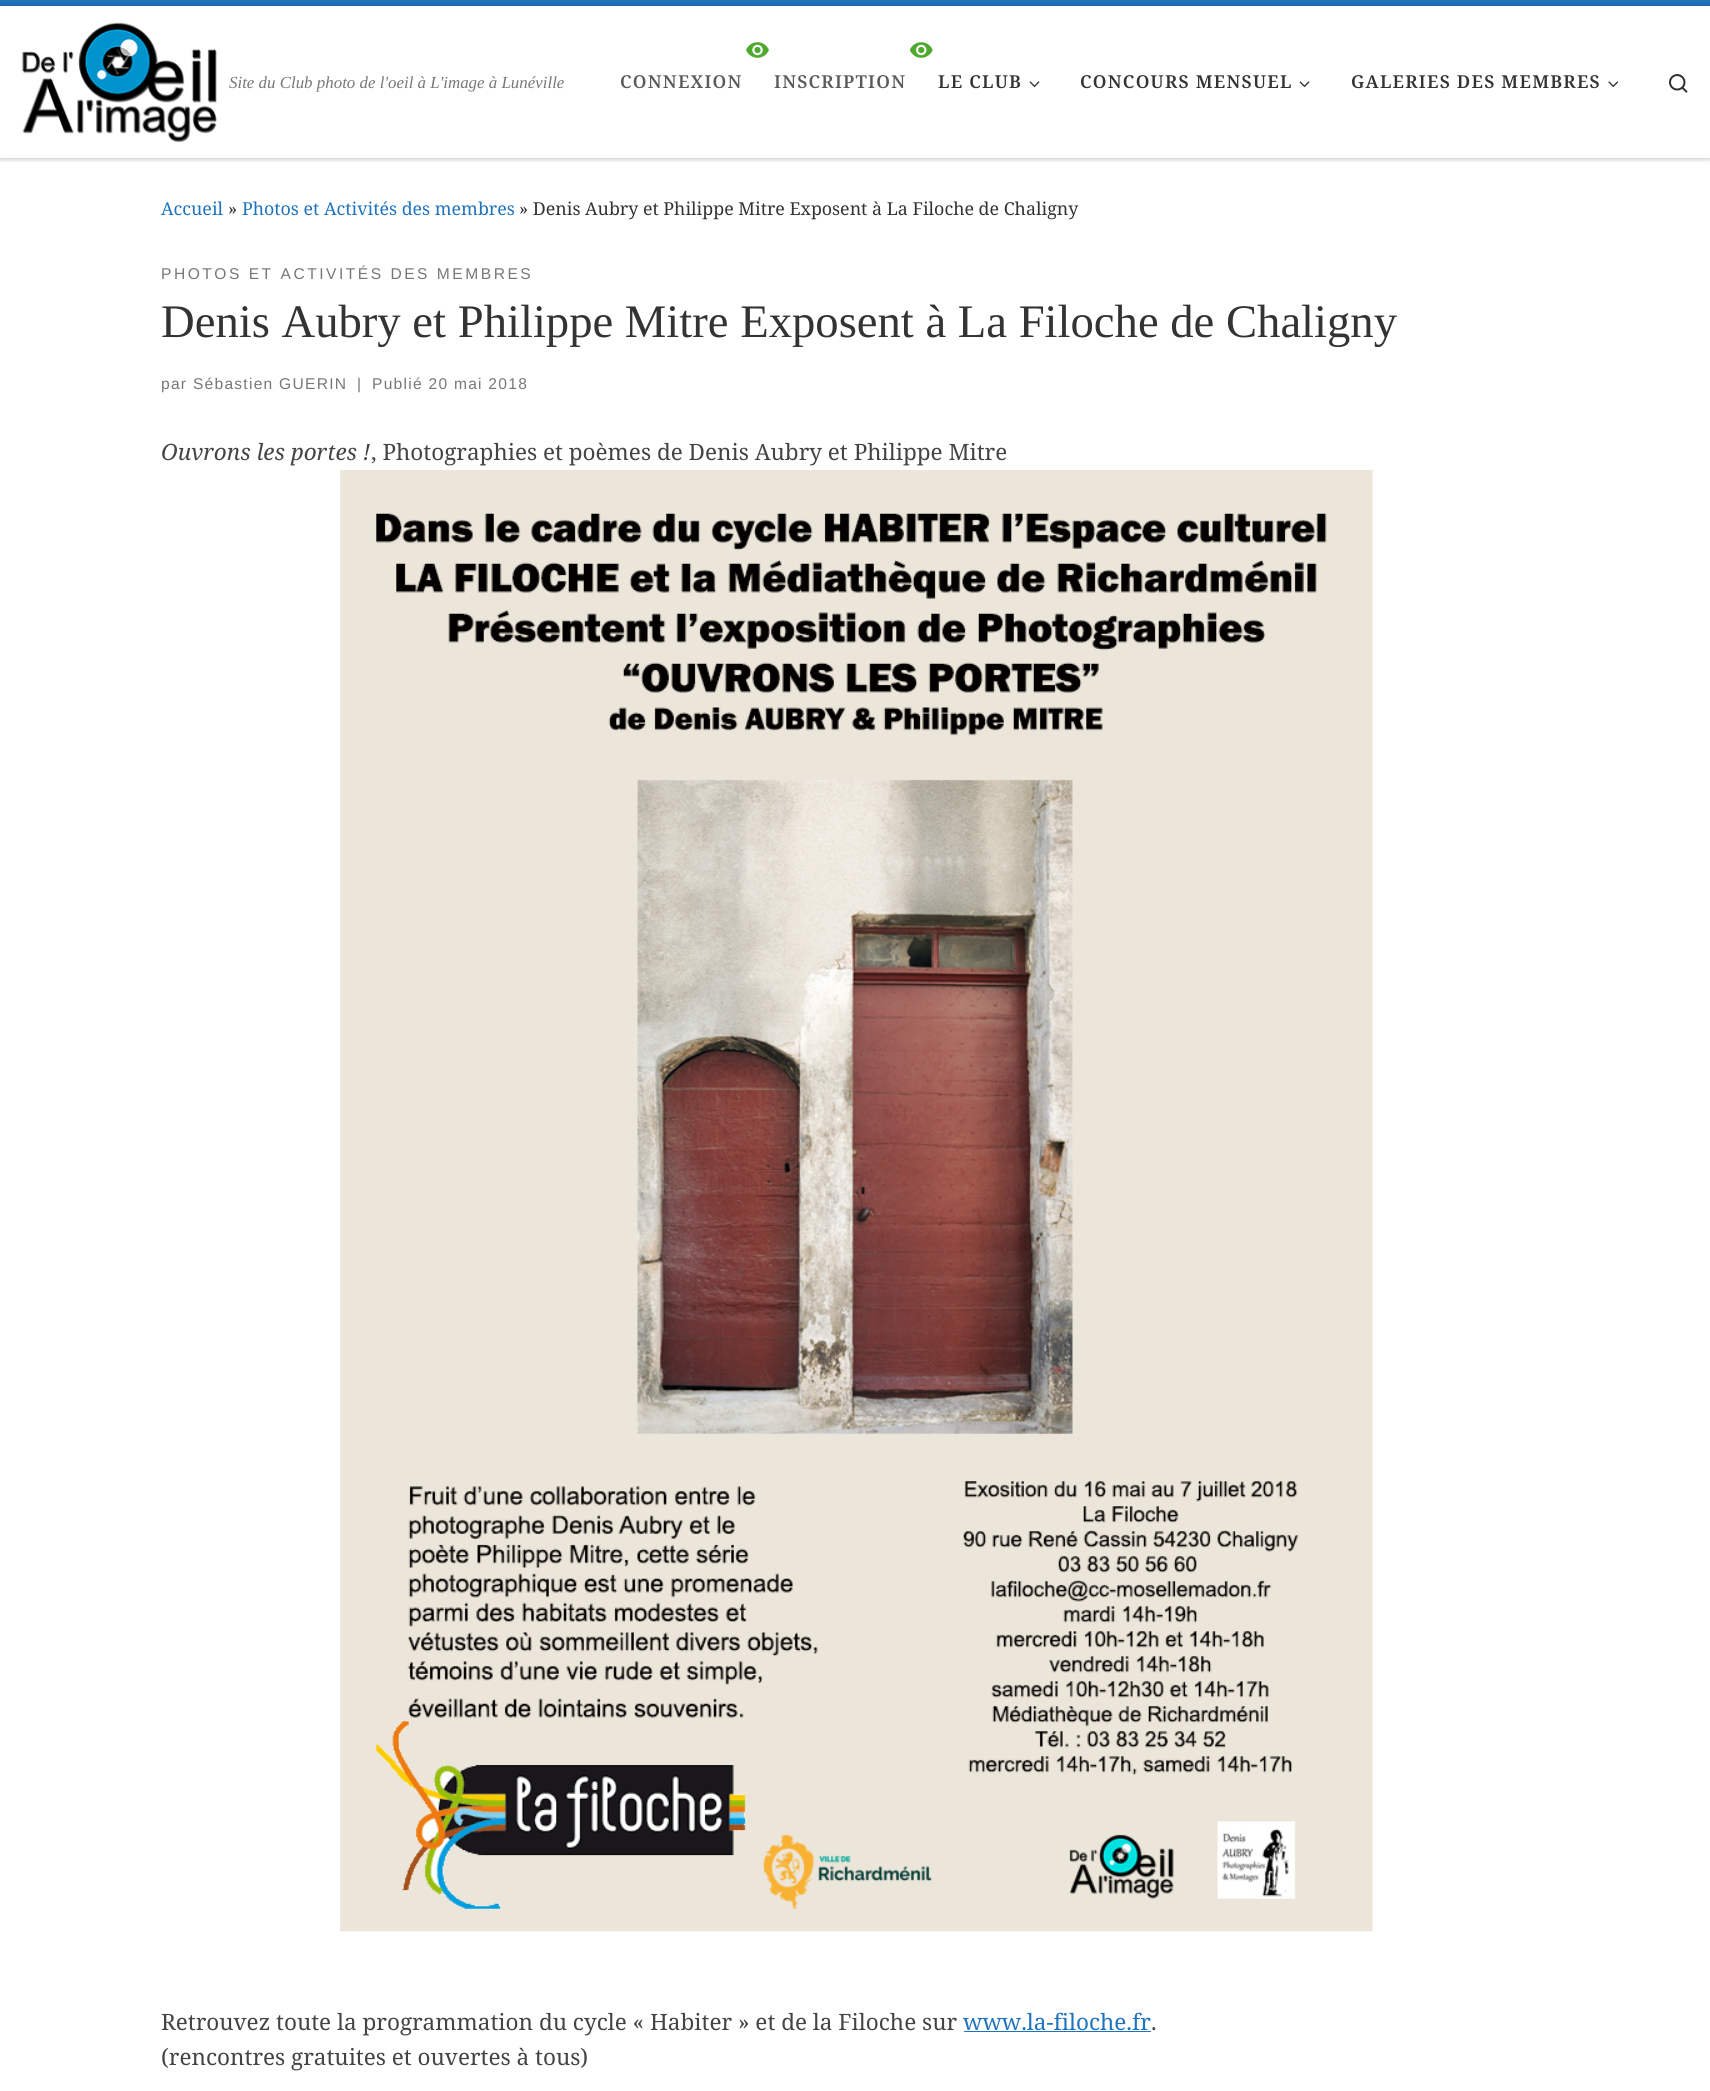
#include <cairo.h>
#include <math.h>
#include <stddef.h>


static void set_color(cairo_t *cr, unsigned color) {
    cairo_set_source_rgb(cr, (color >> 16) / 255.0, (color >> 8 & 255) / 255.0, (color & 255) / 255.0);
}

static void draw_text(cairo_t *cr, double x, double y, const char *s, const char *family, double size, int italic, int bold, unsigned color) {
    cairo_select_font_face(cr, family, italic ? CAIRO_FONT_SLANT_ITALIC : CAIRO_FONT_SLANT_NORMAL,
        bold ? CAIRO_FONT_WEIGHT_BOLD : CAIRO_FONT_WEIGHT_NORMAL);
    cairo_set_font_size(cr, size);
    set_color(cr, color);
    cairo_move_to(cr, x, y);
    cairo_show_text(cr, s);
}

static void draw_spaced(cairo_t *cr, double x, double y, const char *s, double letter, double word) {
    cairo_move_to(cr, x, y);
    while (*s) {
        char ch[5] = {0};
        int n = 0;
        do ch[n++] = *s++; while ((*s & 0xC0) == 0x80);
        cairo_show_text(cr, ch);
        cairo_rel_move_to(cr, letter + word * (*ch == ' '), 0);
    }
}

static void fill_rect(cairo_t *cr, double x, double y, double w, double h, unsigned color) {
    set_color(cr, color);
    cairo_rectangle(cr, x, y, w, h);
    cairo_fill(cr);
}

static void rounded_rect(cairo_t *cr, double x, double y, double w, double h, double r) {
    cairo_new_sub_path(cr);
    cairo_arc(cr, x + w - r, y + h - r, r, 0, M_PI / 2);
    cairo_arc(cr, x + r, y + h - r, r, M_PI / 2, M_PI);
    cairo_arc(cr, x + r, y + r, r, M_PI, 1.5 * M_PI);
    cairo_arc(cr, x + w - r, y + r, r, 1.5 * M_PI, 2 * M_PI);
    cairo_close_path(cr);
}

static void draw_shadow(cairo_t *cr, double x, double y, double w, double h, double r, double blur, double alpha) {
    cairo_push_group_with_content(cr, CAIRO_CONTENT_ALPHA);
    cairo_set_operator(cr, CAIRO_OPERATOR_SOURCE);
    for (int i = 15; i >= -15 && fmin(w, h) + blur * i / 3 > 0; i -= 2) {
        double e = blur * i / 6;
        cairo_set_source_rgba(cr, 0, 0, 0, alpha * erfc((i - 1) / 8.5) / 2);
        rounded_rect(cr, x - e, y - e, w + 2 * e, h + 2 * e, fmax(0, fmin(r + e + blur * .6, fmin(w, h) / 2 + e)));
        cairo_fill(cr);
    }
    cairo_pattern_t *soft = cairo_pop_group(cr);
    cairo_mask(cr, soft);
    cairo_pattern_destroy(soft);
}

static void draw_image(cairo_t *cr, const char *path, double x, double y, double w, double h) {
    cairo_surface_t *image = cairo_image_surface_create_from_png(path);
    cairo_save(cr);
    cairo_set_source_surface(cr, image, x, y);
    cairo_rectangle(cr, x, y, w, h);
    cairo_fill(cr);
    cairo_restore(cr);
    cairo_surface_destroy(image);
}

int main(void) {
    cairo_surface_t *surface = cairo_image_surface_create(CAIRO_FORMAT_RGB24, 1710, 2091);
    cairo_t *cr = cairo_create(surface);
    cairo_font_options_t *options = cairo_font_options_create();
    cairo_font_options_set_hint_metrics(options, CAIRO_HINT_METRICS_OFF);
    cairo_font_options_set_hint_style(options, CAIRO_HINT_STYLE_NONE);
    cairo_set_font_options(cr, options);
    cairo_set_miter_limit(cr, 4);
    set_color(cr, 0xFFFFFF);
    cairo_paint(cr);
    set_color(cr, 0x666666);
    draw_shadow(cr, 0, 3, 1710, 158, 0, 1, 0.08);
    fill_rect(cr, 0, 0, 1710, 6, 0x1E73BE);
    fill_rect(cr, 0, 158, 1710, 1, 0xEFEFEF);
    set_color(cr, 0x000000);
    draw_shadow(cr, 0, 6, 1710, 152, 0, 3, 0.2);
    fill_rect(cr, 0, 6, 1710, 152, 0xFFFFFF);
    draw_image(cr, "assets/img1.png", 21, 22, 196, 121);
    draw_text(cr, 229, 88, "Site du Club photo de l'oeil à L'image à Lunéville", "Liberation Serif", 16.9, 1, 0, 0x777777);
    draw_image(cr, "assets/img2.png", 746, 42, 23, 16);
    cairo_select_font_face(cr, "Noto Serif SemiBold", CAIRO_FONT_SLANT_NORMAL, CAIRO_FONT_WEIGHT_NORMAL);
    cairo_set_font_size(cr, 17.8);
    set_color(cr, 0x5A5A5A);
    draw_spaced(cr, 620, 88, "CONNEXION", 1.25, 0);
    draw_image(cr, "assets/img3.png", 909, 42, 24, 16);
    draw_spaced(cr, 774, 88, "INSCRIPTION", 1.25, 0);
    set_color(cr, 0x333333);
    draw_spaced(cr, 938, 88, "LE CLUB", 1.25, 0);
    draw_image(cr, "assets/img4.png", 1029, 81, 11, 7);
    draw_spaced(cr, 1080, 88, "CONCOURS MENSUEL", 1.25, 0);
    draw_image(cr, "assets/img4.png", 1299, 81, 11, 7);
    draw_spaced(cr, 1351, 88, "GALERIES DES MEMBRES", 1.25, 0);
    draw_image(cr, "assets/img5.png", 1608, 81, 11, 7);
    draw_image(cr, "assets/img6.png", 1669, 74, 19, 19);
    draw_text(cr, 161, 215, "Accueil", "Noto Serif", 17.8, 0, 0, 0x1E73BE);
    draw_text(cr, 228, 215, "»", "Noto Serif", 17.8, 0, 0, 0x333333);
    draw_text(cr, 242, 215, "Photos et Activités des membres", "Noto Serif", 17.8, 0, 0, 0x1E73BE);
    draw_text(cr, 519, 215, "» Denis Aubry et Philippe Mitre Exposent à La Filoche de Chaligny", "Noto Serif", 17.8, 0, 0, 0x333333);
    cairo_select_font_face(cr, "Liberation Sans", CAIRO_FONT_SLANT_NORMAL, CAIRO_FONT_WEIGHT_NORMAL);
    cairo_set_font_size(cr, 15.6);
    set_color(cr, 0x777777);
    draw_spaced(cr, 161, 279, "PHOTOS ET ACTIVITÉS DES MEMBRES", 2.5, 0);
    draw_text(cr, 161, 337, "Denis Aubry et Philippe Mitre Exposent à La Filoche de Chaligny", "Liberation Serif", 46.65, 0, 0, 0x333333);
    cairo_select_font_face(cr, "Liberation Sans", CAIRO_FONT_SLANT_NORMAL, CAIRO_FONT_WEIGHT_NORMAL);
    cairo_set_font_size(cr, 15.6);
    set_color(cr, 0x777777);
    draw_spaced(cr, 161, 389, "par Sébastien GUERIN", 1.25, 0);
    draw_spaced(cr, 357, 389, "|", 1.25, 0);
    draw_spaced(cr, 372, 389, "Publié 20 mai 2018", 1.25, 0);
    draw_text(cr, 161, 460, "Ouvrons les portes !", "Noto Serif", 22.5, 1, 0, 0x444444);
    draw_text(cr, 371, 460, ", Photographies et poèmes de Denis Aubry et Philippe Mitre", "Noto Serif", 22.5, 0, 0, 0x444444);
    draw_image(cr, "assets/img7.png", 340, 470, 1033, 1462);
    draw_text(cr, 161, 2030, "Retrouvez toute la programmation du cycle « Habiter » et de la Filoche sur", "Noto Serif", 22.5, 0, 0, 0x444444);
    draw_text(cr, 963, 2030, "www.la-filoche.fr", "Noto Serif", 22.5, 0, 0, 0x1E73BE);
    fill_rect(cr, 964, 2031, 187, 1, 0x1E73BE);
    draw_text(cr, 1151, 2030, ".", "Noto Serif", 22.5, 0, 0, 0x444444);
    draw_text(cr, 161, 2065, "(rencontres gratuites et ouvertes à tous)", "Noto Serif", 22.5, 0, 0, 0x444444);
    cairo_surface_write_to_png(surface, "output.png");
    cairo_font_options_destroy(options);
    cairo_destroy(cr);
    cairo_surface_destroy(surface);
    return 0;
}
